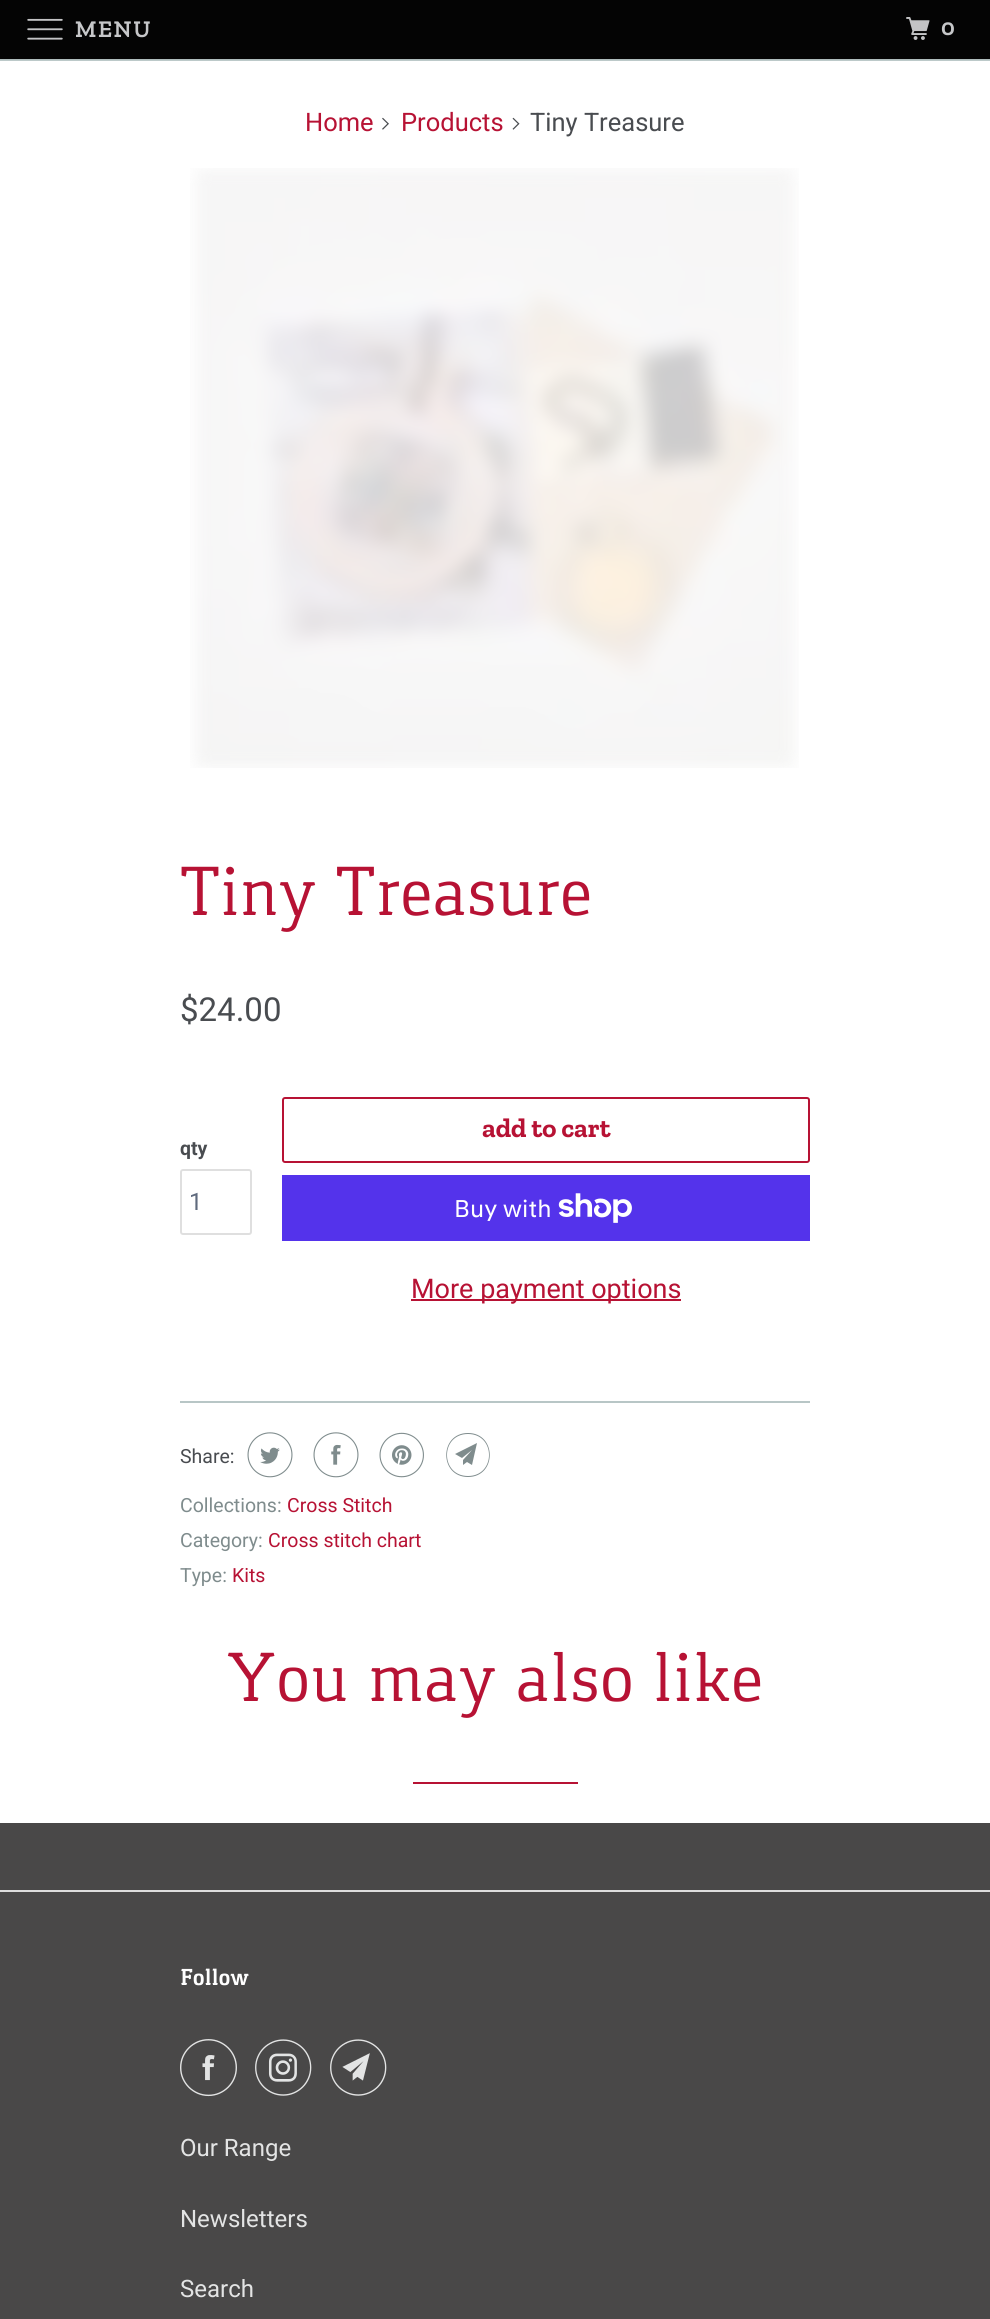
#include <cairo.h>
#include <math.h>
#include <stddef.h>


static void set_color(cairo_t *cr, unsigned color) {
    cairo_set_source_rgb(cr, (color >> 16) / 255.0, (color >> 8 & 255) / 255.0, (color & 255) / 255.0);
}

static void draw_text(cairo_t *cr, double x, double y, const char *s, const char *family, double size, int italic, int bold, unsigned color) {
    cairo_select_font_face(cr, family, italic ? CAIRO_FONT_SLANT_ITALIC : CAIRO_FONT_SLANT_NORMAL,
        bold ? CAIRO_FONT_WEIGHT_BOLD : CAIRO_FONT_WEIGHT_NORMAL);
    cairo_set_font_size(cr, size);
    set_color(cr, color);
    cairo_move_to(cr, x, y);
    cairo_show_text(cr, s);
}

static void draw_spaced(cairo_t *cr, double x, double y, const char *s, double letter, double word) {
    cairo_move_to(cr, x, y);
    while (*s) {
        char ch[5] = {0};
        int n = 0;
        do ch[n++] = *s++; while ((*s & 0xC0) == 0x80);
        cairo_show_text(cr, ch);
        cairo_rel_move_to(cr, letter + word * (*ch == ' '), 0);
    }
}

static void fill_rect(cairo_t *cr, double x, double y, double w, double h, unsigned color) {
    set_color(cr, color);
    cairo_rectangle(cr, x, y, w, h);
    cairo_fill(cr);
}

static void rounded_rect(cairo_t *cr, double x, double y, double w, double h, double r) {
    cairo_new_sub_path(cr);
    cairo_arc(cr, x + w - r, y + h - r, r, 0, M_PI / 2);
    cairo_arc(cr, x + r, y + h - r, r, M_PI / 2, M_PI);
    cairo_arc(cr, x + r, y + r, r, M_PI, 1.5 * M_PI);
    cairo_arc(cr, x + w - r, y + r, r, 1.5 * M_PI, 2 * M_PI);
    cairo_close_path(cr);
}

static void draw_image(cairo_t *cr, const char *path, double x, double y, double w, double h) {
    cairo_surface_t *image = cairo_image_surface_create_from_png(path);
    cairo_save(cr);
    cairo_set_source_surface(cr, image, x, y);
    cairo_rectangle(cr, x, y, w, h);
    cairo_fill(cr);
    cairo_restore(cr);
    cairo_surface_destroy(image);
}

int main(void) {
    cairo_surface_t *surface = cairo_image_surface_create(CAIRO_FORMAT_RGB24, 990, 2319);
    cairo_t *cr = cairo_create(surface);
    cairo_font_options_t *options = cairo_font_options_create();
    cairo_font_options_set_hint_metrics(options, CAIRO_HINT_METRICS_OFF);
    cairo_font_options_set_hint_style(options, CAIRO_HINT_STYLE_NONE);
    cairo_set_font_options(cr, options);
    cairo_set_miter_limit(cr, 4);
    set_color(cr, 0x494848);
    cairo_paint(cr);
    fill_rect(cr, 0, 0, 990, 59, 0x040404);
    fill_rect(cr, 0, 59, 990, 1, 0xAFBCBC);
    draw_image(cr, "assets/img1.png", 27, 18, 36, 22);
    cairo_select_font_face(cr, "Zilla Slab SemiBold", CAIRO_FONT_SLANT_NORMAL, CAIRO_FONT_WEIGHT_NORMAL);
    cairo_set_font_size(cr, 24);
    set_color(cr, 0xC6C7C9);
    draw_spaced(cr, 75, 37, "MENU", 1.5, 0);
    draw_image(cr, "assets/img2.png", 906, 17, 24, 23);
    draw_spaced(cr, 941, 35, "0", 1.5, 0);
    fill_rect(cr, 0, 61, 990, 1762, 0xFFFFFF);
    fill_rect(cr, 0, 60, 990, 1, 0xBCC9C9);
    draw_text(cr, 305, 131, "Home", "Roboto", 25.5, 0, 0, 0xB71234);
    draw_image(cr, "assets/img3.png", 382, 117, 7, 13);
    draw_text(cr, 401, 131, "Products", "Roboto", 25.5, 0, 0, 0xB71234);
    draw_image(cr, "assets/img4.png", 512, 117, 8, 13);
    draw_text(cr, 530, 131, "Tiny Treasure", "Roboto", 25.5, 0, 0, 0x494C50);
    draw_image(cr, "assets/img5.png", 190, 168, 609, 600);
    draw_text(cr, 180, 915, "Tiny Treasure", "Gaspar", 72, 0, 0, 0xB71234);
    draw_text(cr, 180, 1021, "$24.00", "Roboto", 33, 0, 0, 0x494C50);
    draw_text(cr, 180, 1155, "qty", "Roboto", 19.5, 0, 1, 0x494C50);
    rounded_rect(cr, 181, 1170, 70, 64, 2);
    set_color(cr, 0xDFDFDF);
    cairo_stroke(cr);
    draw_text(cr, 189, 1210, "1", "Roboto", 24, 0, 0, 0x5F6A7D);
    rounded_rect(cr, 283, 1098, 526, 64, 2);
    set_color(cr, 0xB71234);
    cairo_stroke(cr);
    draw_text(cr, 482, 1137, "add to cart", "Zilla Slab", 27, 0, 1, 0xB71234);
    fill_rect(cr, 282, 1175, 528, 66, 0x5433EB);
    draw_text(cr, 454, 1217, "Buy with", "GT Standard", 24, 0, 0, 0xFFFFFF);
    draw_image(cr, "assets/img6.png", 558, 1193, 74, 30);
    fill_rect(cr, 411, 1299, 270, 2, 0xB71234);
    draw_text(cr, 411, 1298, "More payment options", "Roboto", 27, 0, 0, 0xB71234);
    fill_rect(cr, 180, 1401, 630, 2, 0xB8C6C6);
    draw_text(cr, 180, 1463, "Share:", "Roboto", 19.5, 0, 0, 0x494C50);
    draw_image(cr, "assets/img7.png", 247, 1432, 46, 46);
    draw_image(cr, "assets/img8.png", 313, 1432, 46, 46);
    draw_image(cr, "assets/img9.png", 379, 1432, 45, 46);
    set_color(cr, 0x7F8C8D);
    cairo_new_path(cr);
    cairo_move_to(cr, 472, 1465);
    cairo_line_to(cr, 467, 1462);
    cairo_line_to(cr, 463, 1465);
    cairo_line_to(cr, 463, 1460);
    cairo_line_to(cr, 472, 1450);
    cairo_line_to(cr, 462, 1458);
    cairo_line_to(cr, 455, 1454);
    cairo_line_to(cr, 477, 1443);
    cairo_close_path(cr);
    cairo_move_to(cr, 468, 1434);
    cairo_curve_to(cr, 440, 1434, 440, 1476, 468, 1476);
    cairo_curve_to(cr, 496, 1476, 496, 1434, 468, 1434);
    cairo_close_path(cr);
    cairo_move_to(cr, 468, 1477);
    cairo_curve_to(cr, 439, 1477, 439, 1433, 468, 1433);
    cairo_curve_to(cr, 497, 1433, 497, 1477, 468, 1477);
    cairo_close_path(cr);
    cairo_fill(cr);
    draw_text(cr, 180, 1512, "Collections:", "Roboto", 19.5, 0, 0, 0x7F8C8D);
    draw_text(cr, 287, 1512, "Cross Stitch", "Roboto", 19.5, 0, 0, 0xB71234);
    draw_text(cr, 180, 1547, "Category:", "Roboto", 19.5, 0, 0, 0x7F8C8D);
    draw_text(cr, 268, 1547, "Cross stitch chart", "Roboto", 19.5, 0, 0, 0xB71234);
    draw_text(cr, 180, 1582, "Type:", "Roboto", 19.5, 0, 0, 0x7F8C8D);
    draw_text(cr, 232, 1582, "Kits", "Roboto", 19.5, 0, 0, 0xB71234);
    draw_text(cr, 226, 1701, "You may also like", "Gaspar", 72, 0, 0, 0xB71234);
    fill_rect(cr, 413, 1782, 165, 2, 0xB71234);
    fill_rect(cr, 0, 1890, 990, 2, 0xDDDDDD);
    draw_text(cr, 180, 1985, "Follow", "Gaspar", 24, 0, 1, 0xFFFFFF);
    draw_image(cr, "assets/img10.png", 180, 2039, 57, 58);
    draw_image(cr, "assets/img11.png", 255, 2039, 57, 57);
    draw_image(cr, "assets/img12.png", 330, 2039, 57, 57);
    draw_text(cr, 180, 2156, "Our Range", "Roboto", 24, 0, 0, 0xE3E4E4);
    draw_text(cr, 180, 2227, "Newsletters", "Roboto", 24, 0, 0, 0xE3E4E4);
    draw_text(cr, 180, 2297, "Search", "Roboto", 24, 0, 0, 0xE3E4E4);
    cairo_surface_write_to_png(surface, "output.png");
    cairo_font_options_destroy(options);
    cairo_destroy(cr);
    cairo_surface_destroy(surface);
    return 0;
}
